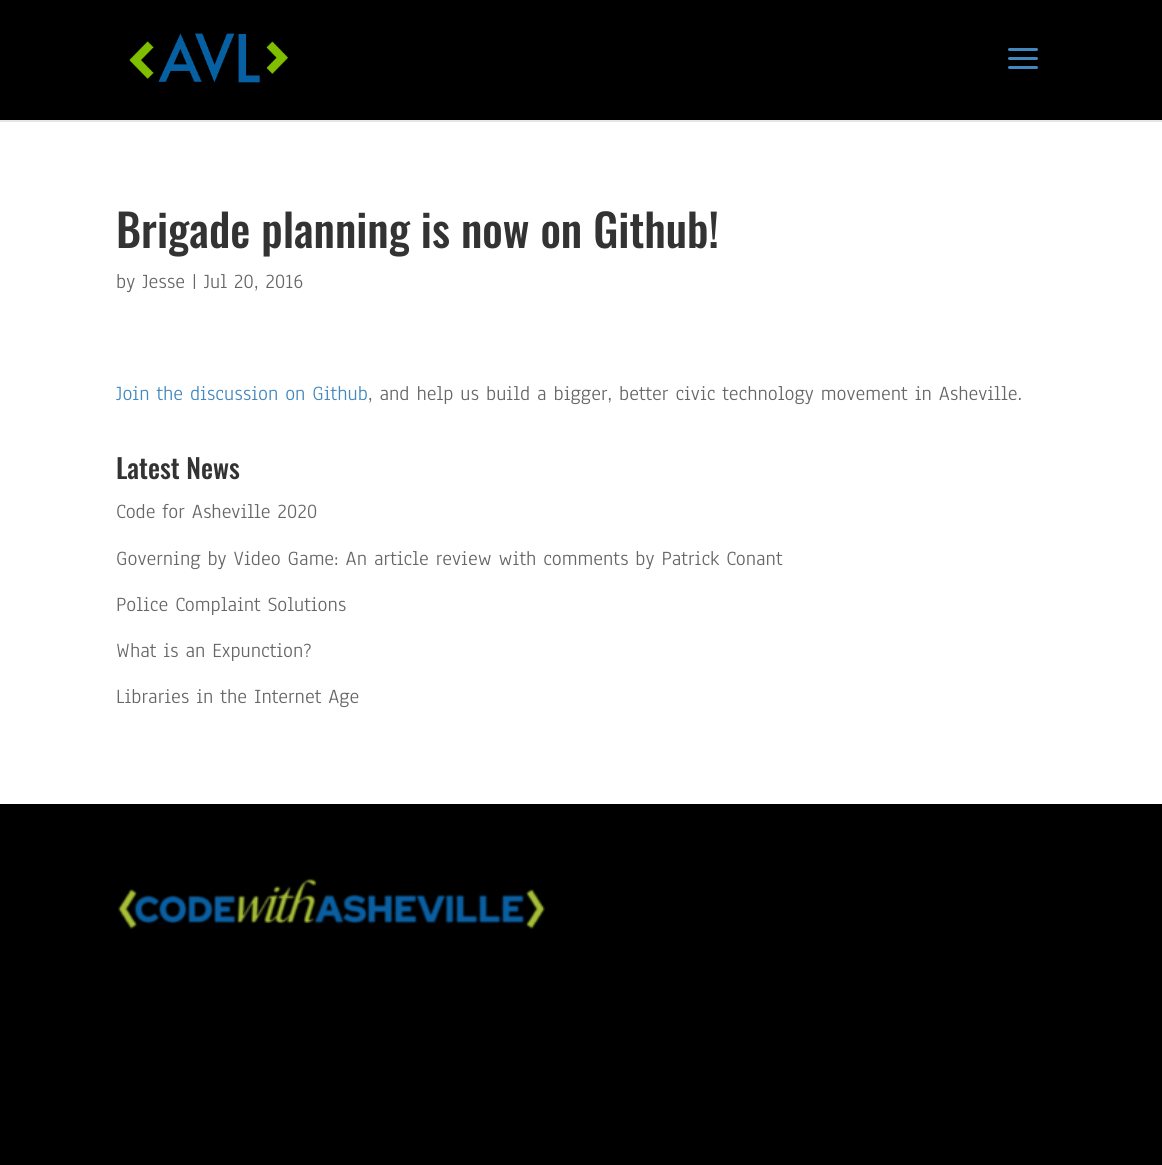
#include <cairo.h>
#include <math.h>
#include <stddef.h>


static void set_color(cairo_t *cr, unsigned color) {
    cairo_set_source_rgb(cr, (color >> 16) / 255.0, (color >> 8 & 255) / 255.0, (color & 255) / 255.0);
}

static void draw_text(cairo_t *cr, double x, double y, const char *s, const char *family, double size, int italic, int bold, unsigned color) {
    cairo_select_font_face(cr, family, italic ? CAIRO_FONT_SLANT_ITALIC : CAIRO_FONT_SLANT_NORMAL,
        bold ? CAIRO_FONT_WEIGHT_BOLD : CAIRO_FONT_WEIGHT_NORMAL);
    cairo_set_font_size(cr, size);
    set_color(cr, color);
    cairo_move_to(cr, x, y);
    cairo_show_text(cr, s);
}

static void fill_rect(cairo_t *cr, double x, double y, double w, double h, unsigned color) {
    set_color(cr, color);
    cairo_rectangle(cr, x, y, w, h);
    cairo_fill(cr);
}

static void draw_image(cairo_t *cr, const char *path, double x, double y, double w, double h) {
    cairo_surface_t *image = cairo_image_surface_create_from_png(path);
    cairo_save(cr);
    cairo_set_source_surface(cr, image, x, y);
    cairo_rectangle(cr, x, y, w, h);
    cairo_fill(cr);
    cairo_restore(cr);
    cairo_surface_destroy(image);
}

int main(void) {
    cairo_surface_t *surface = cairo_image_surface_create(CAIRO_FORMAT_RGB24, 1162, 1165);
    cairo_t *cr = cairo_create(surface);
    cairo_font_options_t *options = cairo_font_options_create();
    cairo_font_options_set_hint_metrics(options, CAIRO_HINT_METRICS_OFF);
    cairo_font_options_set_hint_style(options, CAIRO_HINT_STYLE_NONE);
    cairo_set_font_options(cr, options);
    cairo_set_miter_limit(cr, 4);
    set_color(cr, 0x000000);
    cairo_paint(cr);
    set_color(cr, 0xE6E6E6);
    cairo_new_path(cr);
    cairo_move_to(cr, 0, 120);
    cairo_line_to(cr, 0, 122);
    cairo_line_to(cr, 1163, 122);
    cairo_line_to(cr, 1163, 2);
    cairo_line_to(cr, 1162, 2);
    cairo_line_to(cr, 1162, 120);
    cairo_close_path(cr);
    cairo_fill(cr);
    draw_image(cr, "assets/img1.png", 129, 33, 159, 50);
    draw_image(cr, "assets/img2.png", 1008, 48, 30, 21);
    fill_rect(cr, 0, 122, 1162, 682, 0xFFFFFF);
    draw_text(cr, 116, 248, "Brigade planning is now on Github!", "Oswald Medium", 45, 0, 0, 0x333333);
    draw_text(cr, 116, 288, "by Jesse | Jul 20, 2016", "Anaheim", 21, 0, 0, 0x666666);
    draw_text(cr, 116, 400, "Join the discussion on Github", "Anaheim", 21, 0, 0, 0x4287BF);
    draw_text(cr, 368, 400, ", and help us build a bigger, better civic technology movement in Asheville.", "Anaheim", 21, 0, 0, 0x666666);
    draw_text(cr, 116, 479, "Latest News", "Oswald Medium", 27, 0, 0, 0x333333);
    draw_text(cr, 116, 518, "Code for Asheville 2020", "Anaheim", 21, 0, 0, 0x666666);
    draw_text(cr, 116, 565, "Governing by Video Game: An article review with comments by Patrick Conant", "Anaheim", 21, 0, 0, 0x666666);
    draw_text(cr, 116, 611, "Police Complaint Solutions", "Anaheim", 21, 0, 0, 0x666666);
    draw_text(cr, 116, 657, "What is an Expunction?", "Anaheim", 21, 0, 0, 0x666666);
    draw_text(cr, 116, 703, "Libraries in the Internet Age", "Anaheim", 21, 0, 0, 0x666666);
    draw_image(cr, "assets/img3.png", 118, 878, 427, 51);
    cairo_surface_write_to_png(surface, "output.png");
    cairo_font_options_destroy(options);
    cairo_destroy(cr);
    cairo_surface_destroy(surface);
    return 0;
}
